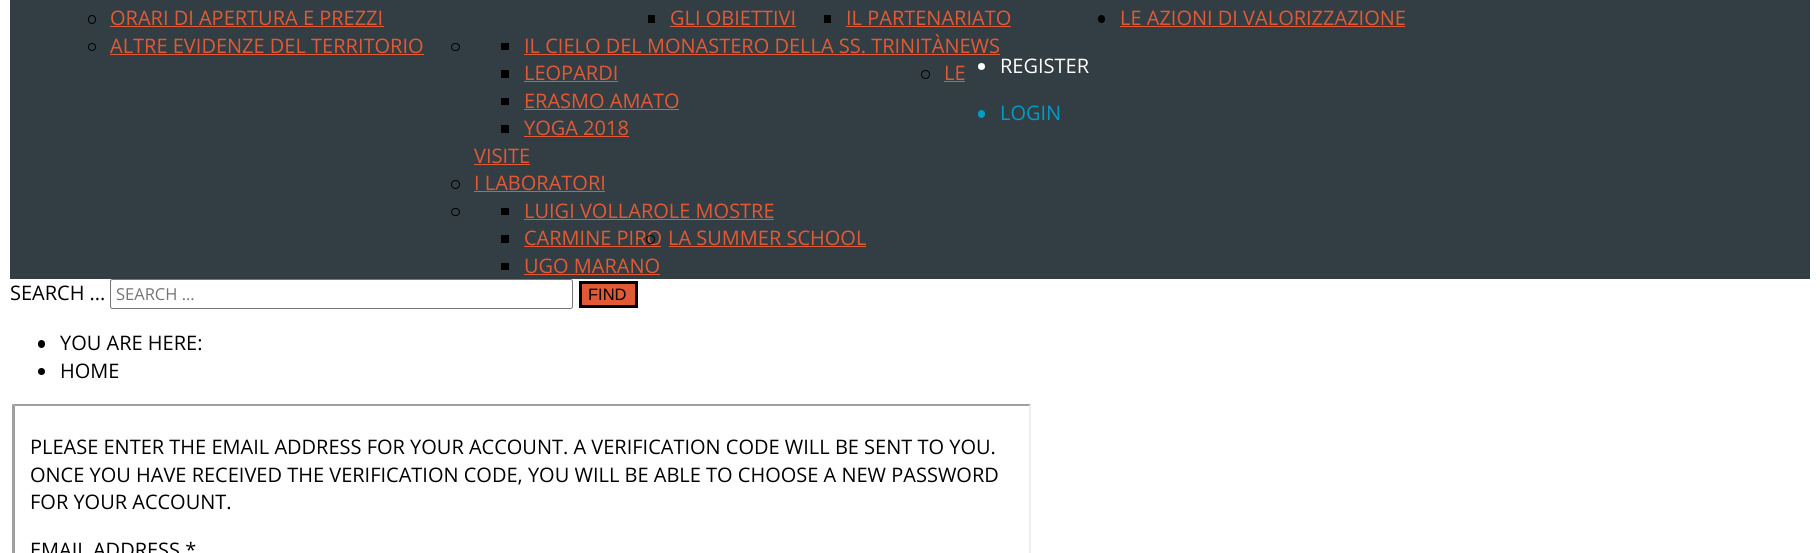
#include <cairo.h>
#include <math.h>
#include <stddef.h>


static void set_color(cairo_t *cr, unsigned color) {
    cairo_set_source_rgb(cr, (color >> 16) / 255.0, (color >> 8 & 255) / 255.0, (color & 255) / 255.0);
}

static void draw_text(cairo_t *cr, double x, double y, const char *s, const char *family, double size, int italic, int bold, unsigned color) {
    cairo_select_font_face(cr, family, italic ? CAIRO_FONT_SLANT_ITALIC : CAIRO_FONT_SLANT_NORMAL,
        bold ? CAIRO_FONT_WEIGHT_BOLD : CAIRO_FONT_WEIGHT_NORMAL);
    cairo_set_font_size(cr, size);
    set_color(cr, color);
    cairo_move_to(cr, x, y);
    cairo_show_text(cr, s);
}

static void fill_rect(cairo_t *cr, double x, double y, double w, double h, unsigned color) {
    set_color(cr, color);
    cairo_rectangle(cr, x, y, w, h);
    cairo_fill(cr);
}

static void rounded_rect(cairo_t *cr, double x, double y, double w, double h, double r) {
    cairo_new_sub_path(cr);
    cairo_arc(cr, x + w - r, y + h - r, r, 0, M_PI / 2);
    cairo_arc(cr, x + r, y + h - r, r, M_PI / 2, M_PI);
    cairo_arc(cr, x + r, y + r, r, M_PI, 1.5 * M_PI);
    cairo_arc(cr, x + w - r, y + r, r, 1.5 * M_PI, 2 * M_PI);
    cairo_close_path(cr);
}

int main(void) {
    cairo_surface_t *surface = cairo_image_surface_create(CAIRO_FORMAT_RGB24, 1820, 553);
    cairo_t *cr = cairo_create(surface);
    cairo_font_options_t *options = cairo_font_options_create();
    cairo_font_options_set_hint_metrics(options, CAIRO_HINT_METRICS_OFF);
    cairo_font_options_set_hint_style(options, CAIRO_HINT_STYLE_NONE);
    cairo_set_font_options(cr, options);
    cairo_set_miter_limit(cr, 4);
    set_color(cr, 0xFFFFFF);
    cairo_paint(cr);
    fill_rect(cr, 10, 0, 1800, 279, 0x333D44);
    rounded_rect(cr, 88.5, 15.5, 7, 8, 3.5);
    set_color(cr, 0x000000);
    cairo_set_line_width(cr, 1);
    cairo_stroke(cr);
    draw_text(cr, 110, 25, "ORARI DI APERTURA E PREZZI", "Open Sans", 20, 0, 0, 0xE25A35);
    fill_rect(cr, 110, 26, 274, 1, 0xE25A35);
    cairo_new_path(cr);
    cairo_arc(cr, 92, 47, 3.5, 0, 2 * M_PI);
    set_color(cr, 0x000000);
    cairo_stroke(cr);
    draw_text(cr, 110, 53, "ALTRE EVIDENZE DEL TERRITORIO", "Open Sans", 20, 0, 0, 0xE25A35);
    fill_rect(cr, 110, 54, 314, 1, 0xE25A35);
    set_color(cr, 0x000000);
    rounded_rect(cr, 1098, 15, 7, 8, 3.5);
    cairo_fill(cr);
    draw_text(cr, 1120, 25, "LE AZIONI DI VALORIZZAZIONE", "Open Sans", 20, 0, 0, 0xE25A35);
    fill_rect(cr, 1120, 26, 285, 1, 0xE25A35);
    rounded_rect(cr, 451.5, 43.5, 8, 7, 3.5);
    set_color(cr, 0x000000);
    cairo_stroke(cr);
    fill_rect(cr, 501, 43, 8, 7, 0x000000);
    draw_text(cr, 524, 53, "IL CIELO DEL MONASTERO DELLA SS. TRINITÀNEWS", "Open Sans", 20, 0, 0, 0xE25A35);
    fill_rect(cr, 524, 54, 476, 1, 0xE25A35);
    fill_rect(cr, 501, 70, 8, 8, 0x000000);
    draw_text(cr, 524, 80, "LEOPARDI", "Open Sans", 20, 0, 0, 0xE25A35);
    fill_rect(cr, 524, 81, 94, 1, 0xE25A35);
    fill_rect(cr, 501, 98, 8, 7, 0x000000);
    draw_text(cr, 524, 108, "ERASMO AMATO", "Open Sans", 20, 0, 0, 0xE25A35);
    fill_rect(cr, 524, 109, 155, 1, 0xE25A35);
    fill_rect(cr, 501, 125, 8, 8, 0x000000);
    draw_text(cr, 524, 135, "YOGA 2018", "Open Sans", 20, 0, 0, 0xE25A35);
    fill_rect(cr, 524, 136, 105, 1, 0xE25A35);
    cairo_new_path(cr);
    cairo_arc(cr, 925.5, 74.5, 4, 0, 2 * M_PI);
    set_color(cr, 0x000000);
    cairo_stroke(cr);
    draw_text(cr, 944, 80, "LE", "Open Sans", 20, 0, 0, 0xE25A35);
    fill_rect(cr, 944, 81, 21, 1, 0xE25A35);
    draw_text(cr, 474, 163, "VISITE", "Open Sans", 20, 0, 0, 0xE25A35);
    fill_rect(cr, 474, 164, 56, 1, 0xE25A35);
    cairo_new_path(cr);
    cairo_arc(cr, 455.5, 184.5, 4, 0, 2 * M_PI);
    set_color(cr, 0x000000);
    cairo_stroke(cr);
    draw_text(cr, 474, 190, "I LABORATORI", "Open Sans", 20, 0, 0, 0xE25A35);
    fill_rect(cr, 474, 191, 131, 1, 0xE25A35);
    rounded_rect(cr, 451.5, 208.5, 8, 7, 3.5);
    set_color(cr, 0x000000);
    cairo_stroke(cr);
    fill_rect(cr, 501, 208, 8, 7, 0x000000);
    draw_text(cr, 524, 218, "LUIGI VOLLAROLE MOSTRE", "Open Sans", 20, 0, 0, 0xE25A35);
    fill_rect(cr, 524, 219, 250, 1, 0xE25A35);
    fill_rect(cr, 501, 235, 8, 8, 0x000000);
    draw_text(cr, 524, 245, "CARMINE PIRO", "Open Sans", 20, 0, 0, 0xE25A35);
    fill_rect(cr, 524, 246, 137, 1, 0xE25A35);
    fill_rect(cr, 501, 263, 8, 7, 0x000000);
    draw_text(cr, 524, 273, "UGO MARANO", "Open Sans", 20, 0, 0, 0xE25A35);
    fill_rect(cr, 524, 274, 136, 1, 0xE25A35);
    cairo_new_path(cr);
    cairo_arc(cr, 650.5, 239.5, 4, 0, 2 * M_PI);
    set_color(cr, 0x000000);
    cairo_stroke(cr);
    draw_text(cr, 668, 245, "LA SUMMER SCHOOL", "Open Sans", 20, 0, 0, 0xE25A35);
    fill_rect(cr, 669, 246, 197, 1, 0xE25A35);
    fill_rect(cr, 648, 15, 7, 8, 0x000000);
    draw_text(cr, 670, 25, "GLI OBIETTIVI", "Open Sans", 20, 0, 0, 0xE25A35);
    fill_rect(cr, 670, 26, 126, 1, 0xE25A35);
    fill_rect(cr, 824, 15, 7, 8, 0x000000);
    draw_text(cr, 846, 25, "IL PARTENARIATO", "Open Sans", 20, 0, 0, 0xE25A35);
    fill_rect(cr, 846, 26, 165, 1, 0xE25A35);
    set_color(cr, 0xFFFFFF);
    cairo_new_path(cr);
    cairo_arc(cr, 981.5, 66.5, 3.5, 0, 2 * M_PI);
    cairo_fill(cr);
    draw_text(cr, 1000, 73, "REGISTER", "Open Sans", 20, 0, 0, 0xFFFFFF);
    set_color(cr, 0x019BC5);
    rounded_rect(cr, 978, 110, 7, 8, 3.5);
    cairo_fill(cr);
    draw_text(cr, 1000, 120, "LOGIN", "Open Sans", 20, 0, 0, 0x019BC5);
    draw_text(cr, 10, 300, "SEARCH ...", "Open Sans", 20, 0, 0, 0x000000);
    rounded_rect(cr, 110.5, 279.5, 462, 29, 2);
    set_color(cr, 0x767676);
    cairo_stroke(cr);
    draw_text(cr, 116, 300, "SEARCH ...", "Open Sans", 16.5, 0, 0, 0x757575);
    set_color(cr, 0xE25A35);
    cairo_rectangle(cr, 580.5, 282.5, 56, 24);
    cairo_fill_preserve(cr);
    set_color(cr, 0x000000);
    cairo_set_line_width(cr, 3);
    cairo_stroke(cr);
    draw_text(cr, 588, 300, "FIND", "Liberation Sans", 16.5, 0, 0, 0x000000);
    rounded_rect(cr, 38, 340, 7, 8, 3.5);
    cairo_fill(cr);
    draw_text(cr, 60, 350, "YOU ARE HERE:", "Open Sans", 20, 0, 0, 0x000000);
    cairo_new_path(cr);
    cairo_arc(cr, 41.5, 371.5, 3.5, 0, 2 * M_PI);
    cairo_fill(cr);
    draw_text(cr, 60, 378, "HOME", "Open Sans", 20, 0, 0, 0x000000);
    set_color(cr, 0x9F9F9F);
    cairo_new_path(cr);
    cairo_move_to(cr, 12, 404);
    cairo_line_to(cr, 1031, 404);
    cairo_line_to(cr, 1029, 406);
    cairo_line_to(cr, 15, 406);
    cairo_close_path(cr);
    cairo_fill(cr);
    set_color(cr, 0xEFEFEF);
    cairo_new_path(cr);
    cairo_move_to(cr, 1031, 404);
    cairo_line_to(cr, 1031, 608);
    cairo_line_to(cr, 1029, 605);
    cairo_line_to(cr, 1029, 406);
    cairo_close_path(cr);
    cairo_fill(cr);
    set_color(cr, 0x9F9F9F);
    cairo_new_path(cr);
    cairo_move_to(cr, 12, 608);
    cairo_line_to(cr, 12, 404);
    cairo_line_to(cr, 15, 406);
    cairo_line_to(cr, 15, 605);
    cairo_close_path(cr);
    cairo_fill(cr);
    draw_text(cr, 30, 454, "PLEASE ENTER THE EMAIL ADDRESS FOR YOUR ACCOUNT. A VERIFICATION CODE WILL BE SENT TO YOU.", "Open Sans", 20, 0, 0, 0x000000);
    draw_text(cr, 30, 482, "ONCE YOU HAVE RECEIVED THE VERIFICATION CODE, YOU WILL BE ABLE TO CHOOSE A NEW PASSWORD", "Open Sans", 20, 0, 0, 0x000000);
    draw_text(cr, 30, 509, "FOR YOUR ACCOUNT.", "Open Sans", 20, 0, 0, 0x000000);
    draw_text(cr, 30, 557, "EMAIL ADDRESS *", "Open Sans", 20, 0, 0, 0x000000);
    cairo_surface_write_to_png(surface, "output.png");
    cairo_font_options_destroy(options);
    cairo_destroy(cr);
    cairo_surface_destroy(surface);
    return 0;
}
